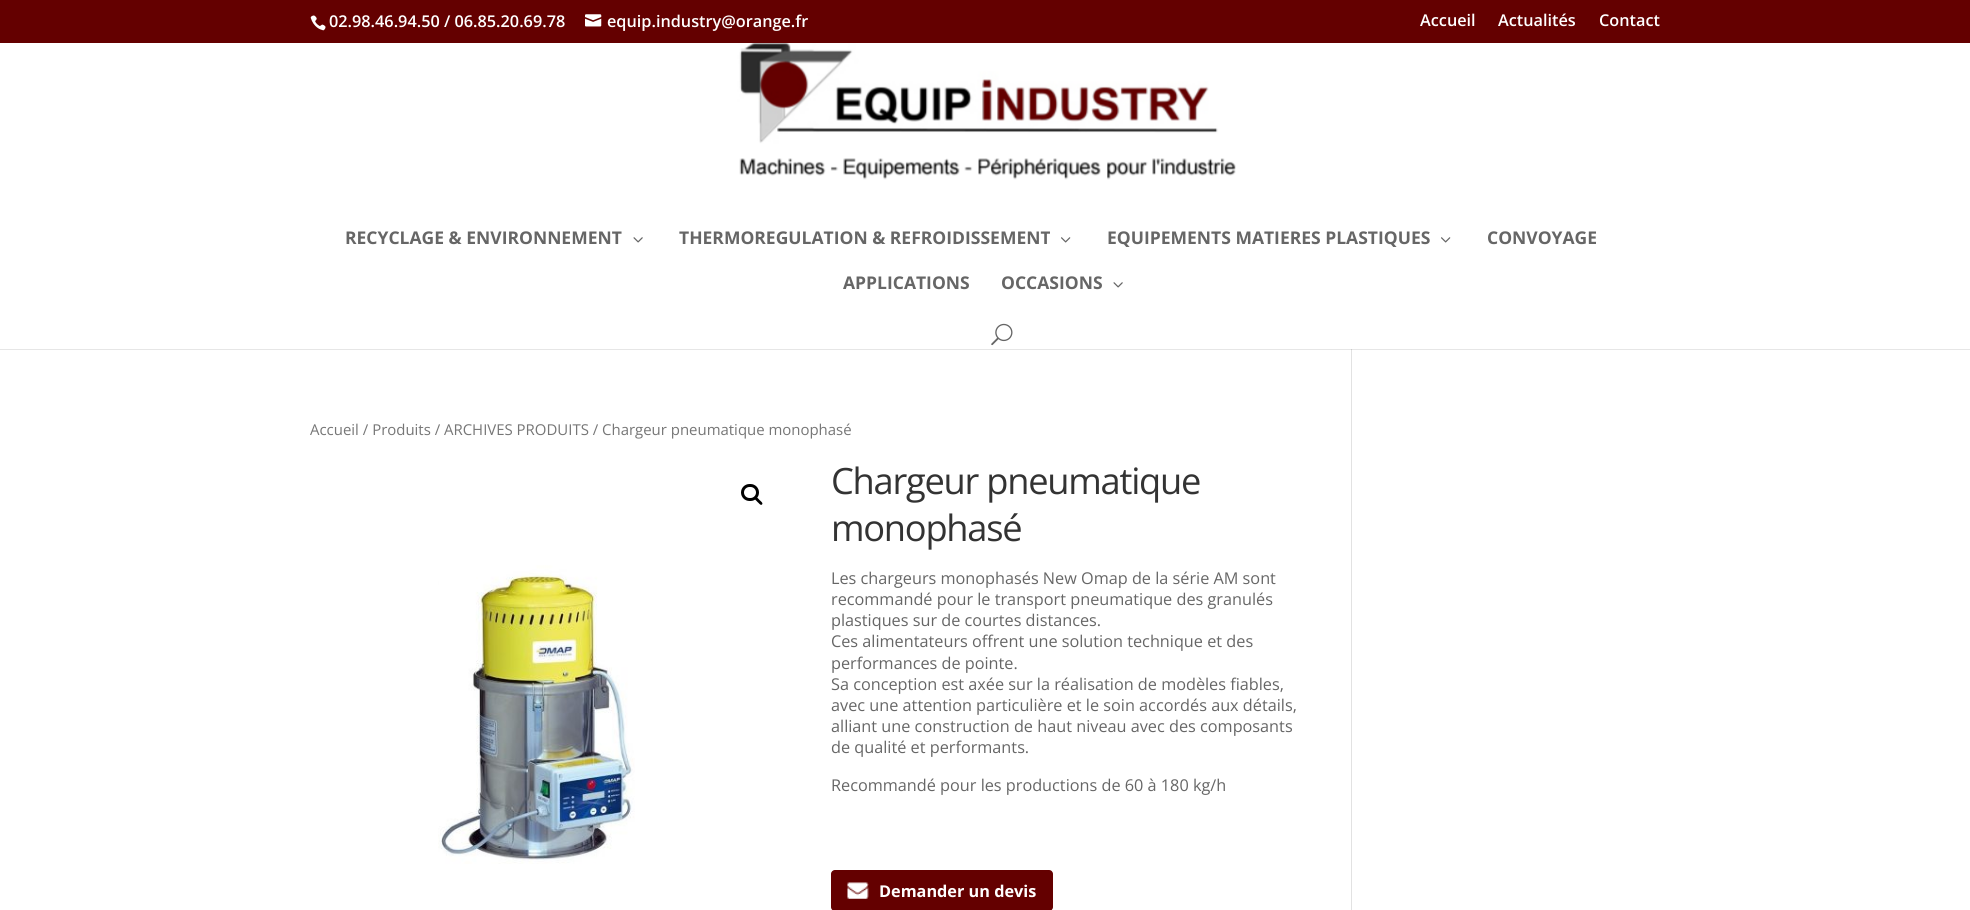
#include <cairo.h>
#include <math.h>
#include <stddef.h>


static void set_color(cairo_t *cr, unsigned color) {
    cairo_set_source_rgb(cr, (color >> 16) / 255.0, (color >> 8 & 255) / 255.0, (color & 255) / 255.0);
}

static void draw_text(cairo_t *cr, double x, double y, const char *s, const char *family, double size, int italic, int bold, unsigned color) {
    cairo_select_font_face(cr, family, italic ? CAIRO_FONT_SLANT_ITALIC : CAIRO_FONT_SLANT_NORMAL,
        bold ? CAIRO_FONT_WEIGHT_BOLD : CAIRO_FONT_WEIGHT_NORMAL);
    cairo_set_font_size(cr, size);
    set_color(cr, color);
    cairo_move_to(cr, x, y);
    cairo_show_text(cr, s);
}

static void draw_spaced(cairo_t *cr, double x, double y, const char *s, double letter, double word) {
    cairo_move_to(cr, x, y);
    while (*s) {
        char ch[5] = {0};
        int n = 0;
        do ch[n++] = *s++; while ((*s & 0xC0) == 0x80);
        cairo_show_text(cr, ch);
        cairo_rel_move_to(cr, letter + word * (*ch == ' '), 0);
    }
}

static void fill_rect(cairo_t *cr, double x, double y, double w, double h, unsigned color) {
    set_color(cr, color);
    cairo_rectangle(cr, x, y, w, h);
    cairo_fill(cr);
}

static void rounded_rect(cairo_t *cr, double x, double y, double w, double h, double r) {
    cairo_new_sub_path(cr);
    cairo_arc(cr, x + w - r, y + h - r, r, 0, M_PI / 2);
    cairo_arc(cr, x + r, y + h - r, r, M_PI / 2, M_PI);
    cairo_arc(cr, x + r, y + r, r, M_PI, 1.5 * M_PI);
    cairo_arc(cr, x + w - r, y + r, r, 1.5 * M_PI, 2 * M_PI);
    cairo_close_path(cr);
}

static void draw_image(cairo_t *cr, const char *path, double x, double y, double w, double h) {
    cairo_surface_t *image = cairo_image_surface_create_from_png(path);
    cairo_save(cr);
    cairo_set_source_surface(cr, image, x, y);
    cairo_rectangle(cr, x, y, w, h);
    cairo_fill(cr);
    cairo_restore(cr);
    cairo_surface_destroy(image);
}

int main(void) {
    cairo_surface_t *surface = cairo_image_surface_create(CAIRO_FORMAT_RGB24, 1970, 910);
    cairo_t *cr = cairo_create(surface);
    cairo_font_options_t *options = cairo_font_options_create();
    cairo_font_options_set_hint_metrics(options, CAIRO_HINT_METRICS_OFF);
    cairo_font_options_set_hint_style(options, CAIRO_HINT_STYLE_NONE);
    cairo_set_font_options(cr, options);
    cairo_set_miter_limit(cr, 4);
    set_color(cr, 0xFFFFFF);
    cairo_paint(cr);
    fill_rect(cr, 0, 0, 1970, 43, 0x640000);
    draw_image(cr, "assets/img1.png", 310, 15, 16, 16);
    draw_text(cr, 329, 27, "02.98.46.94.50 / 06.85.20.69.78", "Open Sans SemiBold", 16.25, 0, 0, 0xFFFFFF);
    draw_image(cr, "assets/img2.png", 585, 14, 17, 13);
    draw_text(cr, 607, 27, "equip.industry@orange.fr", "Open Sans SemiBold", 16.25, 0, 0, 0xFFFFFF);
    draw_text(cr, 1420, 26, "Accueil", "Open Sans SemiBold", 16.25, 0, 0, 0xFFFFFF);
    draw_text(cr, 1498, 26, "Actualités", "Open Sans SemiBold", 16.25, 0, 0, 0xFFFFFF);
    draw_text(cr, 1599, 26, "Contact", "Open Sans SemiBold", 16.25, 0, 0, 0xFFFFFF);
    fill_rect(cr, 0, 349, 1970, 1, 0xE6E6E6);
    fill_rect(cr, 1351, 348, 1, 562, 0xE2E2E2);
    fill_rect(cr, 1351, 348, 1, 1, 0xFFFFFF);
    draw_image(cr, "assets/img3.png", 737, 43, 502, 137);
    draw_text(cr, 345, 244, "RECYCLAGE & ENVIRONNEMENT", "Open Sans", 17.5, 0, 1, 0x666666);
    draw_image(cr, "assets/img4.png", 633, 237, 10, 6);
    draw_text(cr, 679, 244, "THERMOREGULATION & REFROIDISSEMENT", "Open Sans", 17.5, 0, 1, 0x666666);
    draw_image(cr, "assets/img5.png", 1061, 237, 10, 6);
    draw_text(cr, 1107, 244, "EQUIPEMENTS MATIERES PLASTIQUES", "Open Sans", 17.5, 0, 1, 0x666666);
    draw_image(cr, "assets/img5.png", 1441, 237, 10, 6);
    draw_text(cr, 1487, 244, "CONVOYAGE", "Open Sans", 17.5, 0, 1, 0x666666);
    draw_text(cr, 843, 289, "APPLICATIONS", "Open Sans", 17.5, 0, 1, 0x666666);
    draw_text(cr, 1001, 289, "OCCASIONS", "Open Sans", 17.5, 0, 1, 0x666666);
    draw_image(cr, "assets/img4.png", 1113, 282, 10, 6);
    draw_image(cr, "assets/img6.png", 991, 323, 22, 23);
    draw_text(cr, 310, 435, "Accueil / Produits / ARCHIVES PRODUITS / Chargeur pneumatique monophasé", "Open Sans", 14.95, 0, 0, 0x767676);
    rounded_rect(cr, 742.5, 485.5, 15, 14, 7);
    set_color(cr, 0x000000);
    cairo_set_line_width(cr, 3);
    cairo_stroke(cr);
    cairo_new_path(cr);
    cairo_move_to(cr, 755, 497.5);
    cairo_curve_to(cr, 756.5, 496, 759, 499.5, 759.5, 500);
    cairo_curve_to(cr, 760.5, 501, 763.5, 503, 762, 504.5);
    cairo_curve_to(cr, 760.5, 506, 758.5, 502.5, 757.5, 502);
    cairo_curve_to(cr, 757, 501, 753.5, 499, 755, 497.5);
    cairo_close_path(cr);
    cairo_fill(cr);
    draw_image(cr, "assets/img7.png", 438, 565, 197, 299);
    cairo_set_font_size(cr, 36.25);
    set_color(cr, 0x333333);
    draw_spaced(cr, 831, 494, "Chargeur pneumatique", -1.25, 0);
    draw_spaced(cr, 831, 541, "monophasé", -1.25, 0);
    draw_text(cr, 831, 584, "Les chargeurs monophasés New Omap de la série AM sont", "Open Sans", 16.25, 0, 0, 0x666666);
    draw_text(cr, 831, 605, "recommandé pour le transport pneumatique des granulés", "Open Sans", 16.25, 0, 0, 0x666666);
    draw_text(cr, 831, 626, "plastiques sur de courtes distances.", "Open Sans", 16.25, 0, 0, 0x666666);
    draw_text(cr, 831, 647, "Ces alimentateurs offrent une solution technique et des", "Open Sans", 16.25, 0, 0, 0x666666);
    draw_text(cr, 831, 669, "performances de pointe.", "Open Sans", 16.25, 0, 0, 0x666666);
    draw_text(cr, 831, 690, "Sa conception est axée sur la réalisation de modèles fiables,", "Open Sans", 16.25, 0, 0, 0x666666);
    draw_text(cr, 831, 711, "avec une attention particulière et le soin accordés aux détails,", "Open Sans", 16.25, 0, 0, 0x666666);
    draw_text(cr, 831, 732, "alliant une construction de haut niveau avec des composants", "Open Sans", 16.25, 0, 0, 0x666666);
    draw_text(cr, 831, 753, "de qualité et performants.", "Open Sans", 16.25, 0, 0, 0x666666);
    draw_text(cr, 831, 791, "Recommandé pour les productions de 60 à 180 kg/h", "Open Sans", 16.25, 0, 0, 0x666666);
    set_color(cr, 0x640000);
    rounded_rect(cr, 831, 870, 222, 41, 4);
    cairo_fill(cr);
    draw_image(cr, "assets/img8.png", 847, 882, 22, 17);
    draw_text(cr, 879, 897, "Demander un devis", "Open Sans", 16.25, 0, 1, 0xFFFFFF);
    fill_rect(cr, 1351, 349, 1, 1, 0xCBCBCB);
    cairo_surface_write_to_png(surface, "output.png");
    cairo_font_options_destroy(options);
    cairo_destroy(cr);
    cairo_surface_destroy(surface);
    return 0;
}
